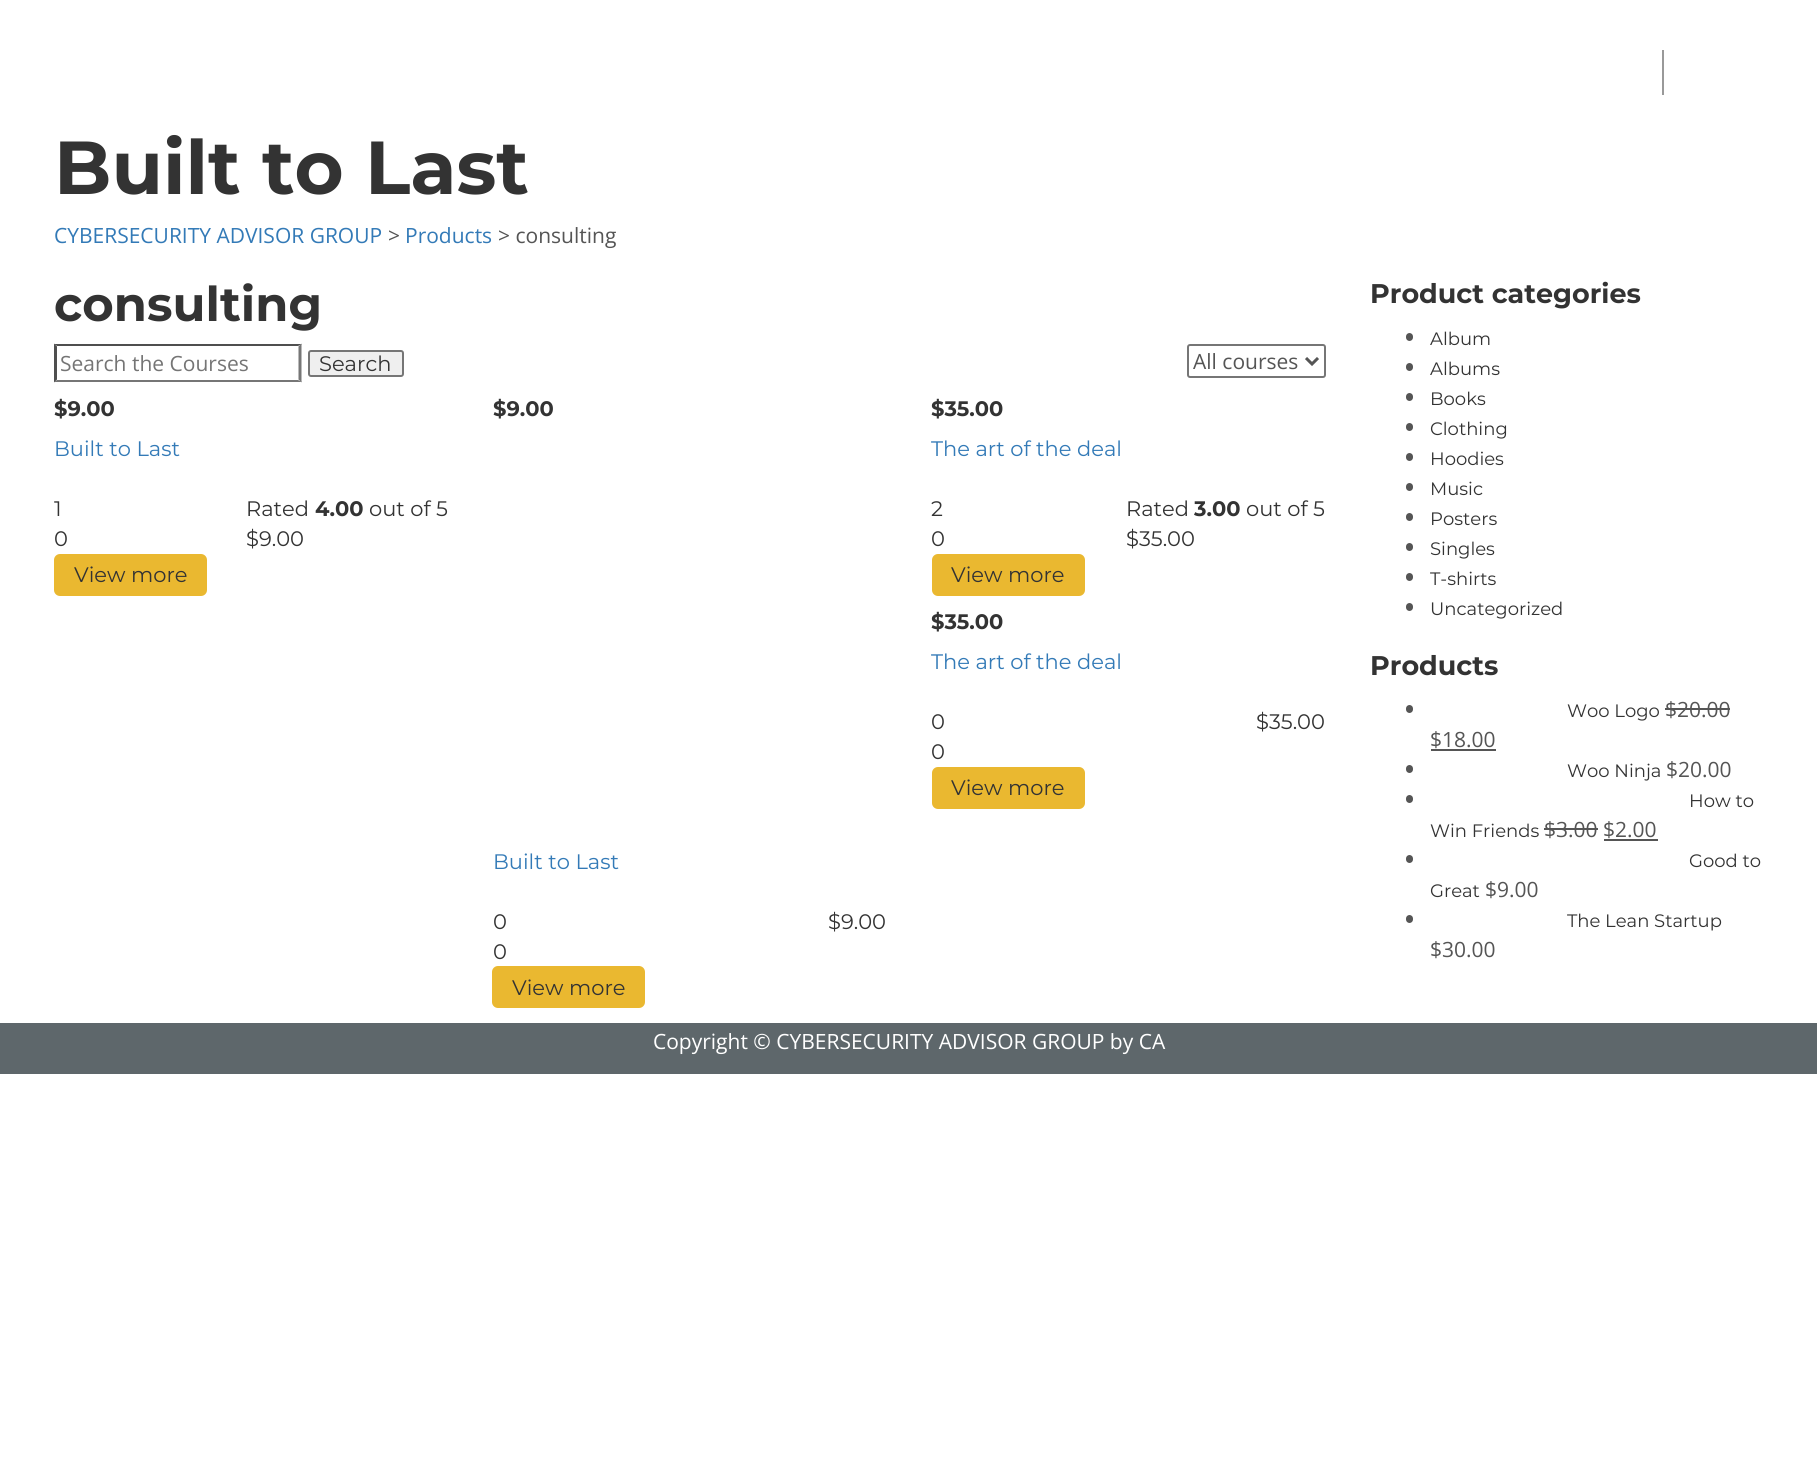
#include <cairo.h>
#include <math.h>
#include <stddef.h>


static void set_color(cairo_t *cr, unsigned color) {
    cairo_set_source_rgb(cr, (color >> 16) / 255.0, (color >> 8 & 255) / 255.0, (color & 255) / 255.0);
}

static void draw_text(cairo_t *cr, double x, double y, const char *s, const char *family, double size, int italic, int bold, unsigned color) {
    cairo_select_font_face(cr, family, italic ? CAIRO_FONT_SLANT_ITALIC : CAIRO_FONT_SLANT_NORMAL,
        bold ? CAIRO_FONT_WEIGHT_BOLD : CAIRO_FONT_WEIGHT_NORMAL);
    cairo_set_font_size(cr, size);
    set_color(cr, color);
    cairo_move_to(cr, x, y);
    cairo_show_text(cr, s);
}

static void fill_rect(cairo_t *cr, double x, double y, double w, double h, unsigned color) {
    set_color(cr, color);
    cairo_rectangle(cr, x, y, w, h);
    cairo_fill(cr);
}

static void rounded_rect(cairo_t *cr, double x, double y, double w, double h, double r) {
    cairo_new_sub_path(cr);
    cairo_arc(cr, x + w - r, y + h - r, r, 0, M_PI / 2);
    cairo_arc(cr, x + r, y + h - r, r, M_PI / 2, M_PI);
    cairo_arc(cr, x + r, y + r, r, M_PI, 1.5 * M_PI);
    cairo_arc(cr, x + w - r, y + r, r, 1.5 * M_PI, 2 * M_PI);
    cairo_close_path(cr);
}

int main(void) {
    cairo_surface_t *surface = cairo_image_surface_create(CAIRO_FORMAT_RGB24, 1817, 1462);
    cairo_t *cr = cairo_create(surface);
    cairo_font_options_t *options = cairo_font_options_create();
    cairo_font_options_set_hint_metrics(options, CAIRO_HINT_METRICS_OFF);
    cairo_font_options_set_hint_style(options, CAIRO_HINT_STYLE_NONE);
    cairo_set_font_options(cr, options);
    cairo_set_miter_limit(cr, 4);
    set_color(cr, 0xFFFFFF);
    cairo_paint(cr);
    fill_rect(cr, 1662, 50, 2, 45, 0x999999);
    draw_text(cr, 54, 194, "Built to Last", "Montserrat", 75, 0, 1, 0x333333);
    draw_text(cr, 54, 243, "CYBERSECURITY ADVISOR GROUP", "Open Sans", 21, 0, 0, 0x337AB7);
    draw_text(cr, 388, 243, ">", "Open Sans", 21, 0, 0, 0x555555);
    draw_text(cr, 405, 243, "Products", "Open Sans", 21, 0, 0, 0x337AB7);
    draw_text(cr, 498, 243, "> consulting", "Open Sans", 21, 0, 0, 0x555555);
    draw_text(cr, 54, 321, "consulting", "Montserrat", 48, 0, 1, 0x333333);
    set_color(cr, 0x4F4F4F);
    cairo_new_path(cr);
    cairo_move_to(cr, 54, 344);
    cairo_line_to(cr, 302, 344);
    cairo_line_to(cr, 298, 346);
    cairo_line_to(cr, 57, 346);
    cairo_close_path(cr);
    cairo_fill(cr);
    set_color(cr, 0x767676);
    cairo_new_path(cr);
    cairo_move_to(cr, 301.5, 343.5);
    cairo_line_to(cr, 301.5, 382.5);
    cairo_line_to(cr, 298.5, 379.5);
    cairo_line_to(cr, 298.5, 346.5);
    cairo_close_path(cr);
    cairo_fill(cr);
    cairo_new_path(cr);
    cairo_move_to(cr, 302, 382);
    cairo_line_to(cr, 54, 382);
    cairo_line_to(cr, 57, 380);
    cairo_line_to(cr, 298, 380);
    cairo_close_path(cr);
    cairo_fill(cr);
    set_color(cr, 0x4F4F4F);
    cairo_new_path(cr);
    cairo_move_to(cr, 54, 382.5);
    cairo_line_to(cr, 54, 343.5);
    cairo_line_to(cr, 57, 346.5);
    cairo_line_to(cr, 57, 379.5);
    cairo_close_path(cr);
    cairo_fill(cr);
    draw_text(cr, 60, 371, "Search the Courses", "Open Sans", 21, 0, 0, 0x757575);
    set_color(cr, 0xEFEFEF);
    rounded_rect(cr, 309, 351, 94, 25, 2);
    cairo_fill_preserve(cr);
    set_color(cr, 0x767676);
    cairo_stroke(cr);
    draw_text(cr, 319, 371, "Search", "Montserrat", 21, 0, 0, 0x333333);
    rounded_rect(cr, 1188, 345, 137, 32, 2);
    set_color(cr, 0x767676);
    cairo_stroke(cr);
    cairo_new_path(cr);
    cairo_move_to(cr, 1306, 358);
    cairo_line_to(cr, 1312, 364);
    cairo_line_to(cr, 1318, 358);
    set_color(cr, 0x555555);
    cairo_set_line_width(cr, 3);
    cairo_stroke(cr);
    draw_text(cr, 1193, 369, "All courses", "Open Sans", 21, 0, 0, 0x555555);
    draw_text(cr, 54, 416, "$9.00", "Montserrat", 21, 0, 1, 0x333333);
    draw_text(cr, 54, 456, "Built to Last", "Montserrat", 21, 0, 0, 0x337AB7);
    draw_text(cr, 54, 516, "1", "Montserrat", 21, 0, 0, 0x333333);
    draw_text(cr, 54, 546, "0", "Montserrat", 21, 0, 0, 0x333333);
    draw_text(cr, 246, 516, "Rated", "Montserrat", 21, 0, 0, 0x333333);
    draw_text(cr, 315, 516, "4.00", "Montserrat", 21, 0, 1, 0x333333);
    draw_text(cr, 369, 516, "out of 5", "Montserrat", 21, 0, 0, 0x333333);
    draw_text(cr, 246, 546, "$9.00", "Montserrat", 21, 0, 0, 0x333333);
    set_color(cr, 0xEAB830);
    rounded_rect(cr, 55, 555, 151, 40, 5);
    cairo_fill_preserve(cr);
    cairo_set_line_width(cr, 2);
    cairo_stroke(cr);
    draw_text(cr, 74, 582, "View more", "Montserrat", 21, 0, 0, 0x333333);
    draw_text(cr, 493, 416, "$9.00", "Montserrat", 21, 0, 1, 0x333333);
    draw_text(cr, 493, 869, "Built to Last", "Montserrat", 21, 0, 0, 0x337AB7);
    draw_text(cr, 493, 929, "0", "Montserrat", 21, 0, 0, 0x333333);
    draw_text(cr, 493, 959, "0", "Montserrat", 21, 0, 0, 0x333333);
    draw_text(cr, 828, 929, "$9.00", "Montserrat", 21, 0, 0, 0x333333);
    set_color(cr, 0xEAB830);
    rounded_rect(cr, 493, 967, 151, 40, 5);
    cairo_fill_preserve(cr);
    cairo_stroke(cr);
    draw_text(cr, 512, 995, "View more", "Montserrat", 21, 0, 0, 0x333333);
    draw_text(cr, 931, 416, "$35.00", "Montserrat", 21, 0, 1, 0x333333);
    draw_text(cr, 931, 456, "The art of the deal", "Montserrat", 21, 0, 0, 0x337AB7);
    draw_text(cr, 931, 516, "2", "Montserrat", 21, 0, 0, 0x333333);
    draw_text(cr, 931, 546, "0", "Montserrat", 21, 0, 0, 0x333333);
    draw_text(cr, 1126, 516, "Rated", "Montserrat", 21, 0, 0, 0x333333);
    draw_text(cr, 1194, 516, "3.00", "Montserrat", 21, 0, 1, 0x333333);
    draw_text(cr, 1246, 516, "out of 5", "Montserrat", 21, 0, 0, 0x333333);
    draw_text(cr, 1126, 546, "$35.00", "Montserrat", 21, 0, 0, 0x333333);
    set_color(cr, 0xEAB830);
    rounded_rect(cr, 933, 555, 151, 40, 5);
    cairo_fill_preserve(cr);
    cairo_stroke(cr);
    draw_text(cr, 951, 582, "View more", "Montserrat", 21, 0, 0, 0x333333);
    draw_text(cr, 931, 629, "$35.00", "Montserrat", 21, 0, 1, 0x333333);
    draw_text(cr, 931, 669, "The art of the deal", "Montserrat", 21, 0, 0, 0x337AB7);
    draw_text(cr, 931, 729, "0", "Montserrat", 21, 0, 0, 0x333333);
    draw_text(cr, 931, 759, "0", "Montserrat", 21, 0, 0, 0x333333);
    draw_text(cr, 1256, 729, "$35.00", "Montserrat", 21, 0, 0, 0x333333);
    set_color(cr, 0xEAB830);
    rounded_rect(cr, 933, 768, 151, 40, 5);
    cairo_fill_preserve(cr);
    cairo_stroke(cr);
    draw_text(cr, 951, 795, "View more", "Montserrat", 21, 0, 0, 0x333333);
    draw_text(cr, 1370, 303, "Product categories", "Montserrat", 27, 0, 1, 0x333333);
    set_color(cr, 0x555555);
    rounded_rect(cr, 1406, 333, 7, 8, 3.5);
    cairo_fill(cr);
    draw_text(cr, 1430, 345, "Album", "Montserrat", 18, 0, 0, 0x333333);
    set_color(cr, 0x555555);
    rounded_rect(cr, 1406, 363, 7, 8, 3.5);
    cairo_fill(cr);
    draw_text(cr, 1430, 375, "Albums", "Montserrat", 18, 0, 0, 0x333333);
    set_color(cr, 0x555555);
    rounded_rect(cr, 1406, 393, 7, 8, 3.5);
    cairo_fill(cr);
    draw_text(cr, 1430, 405, "Books", "Montserrat", 18, 0, 0, 0x333333);
    set_color(cr, 0x555555);
    rounded_rect(cr, 1406, 423, 7, 8, 3.5);
    cairo_fill(cr);
    draw_text(cr, 1430, 435, "Clothing", "Montserrat", 18, 0, 0, 0x333333);
    set_color(cr, 0x555555);
    rounded_rect(cr, 1406, 453, 7, 8, 3.5);
    cairo_fill(cr);
    draw_text(cr, 1430, 465, "Hoodies", "Montserrat", 18, 0, 0, 0x333333);
    set_color(cr, 0x555555);
    rounded_rect(cr, 1406, 483, 7, 8, 3.5);
    cairo_fill(cr);
    draw_text(cr, 1430, 495, "Music", "Montserrat", 18, 0, 0, 0x333333);
    set_color(cr, 0x555555);
    rounded_rect(cr, 1406, 513, 7, 8, 3.5);
    cairo_fill(cr);
    draw_text(cr, 1430, 525, "Posters", "Montserrat", 18, 0, 0, 0x333333);
    set_color(cr, 0x555555);
    rounded_rect(cr, 1406, 543, 7, 8, 3.5);
    cairo_fill(cr);
    draw_text(cr, 1430, 555, "Singles", "Montserrat", 18, 0, 0, 0x333333);
    set_color(cr, 0x555555);
    rounded_rect(cr, 1406, 573, 7, 8, 3.5);
    cairo_fill(cr);
    draw_text(cr, 1430, 585, "T-shirts", "Montserrat", 18, 0, 0, 0x333333);
    set_color(cr, 0x555555);
    rounded_rect(cr, 1406, 603, 7, 8, 3.5);
    cairo_fill(cr);
    draw_text(cr, 1430, 615, "Uncategorized", "Montserrat", 18, 0, 0, 0x333333);
    draw_text(cr, 1370, 675, "Products", "Montserrat", 27, 0, 1, 0x333333);
    set_color(cr, 0x555555);
    rounded_rect(cr, 1406, 705, 7, 8, 3.5);
    cairo_fill(cr);
    draw_text(cr, 1567, 717, "Woo Logo", "Montserrat", 18, 0, 0, 0x333333);
    draw_text(cr, 1665, 717, "$20.00", "Open Sans", 21, 0, 0, 0x555555);
    fill_rect(cr, 1665, 708, 65, 2, 0x555555);
    draw_text(cr, 1430, 747, "$18.00", "Open Sans", 21, 0, 0, 0x555555);
    fill_rect(cr, 1431, 749, 65, 2, 0x555555);
    rounded_rect(cr, 1406, 765, 7, 8, 3.5);
    cairo_fill(cr);
    draw_text(cr, 1567, 777, "Woo Ninja", "Montserrat", 18, 0, 0, 0x333333);
    draw_text(cr, 1666, 777, "$20.00", "Open Sans", 21, 0, 0, 0x555555);
    rounded_rect(cr, 1406, 795, 7, 8, 3.5);
    cairo_fill(cr);
    draw_text(cr, 1689, 807, "How to", "Montserrat", 18, 0, 0, 0x333333);
    draw_text(cr, 1430, 837, "Win Friends", "Montserrat", 18, 0, 0, 0x333333);
    draw_text(cr, 1544, 837, "$3.00 $2.00", "Open Sans", 21, 0, 0, 0x555555);
    fill_rect(cr, 1544, 828, 54, 2, 0x555555);
    fill_rect(cr, 1604, 839, 54, 2, 0x555555);
    rounded_rect(cr, 1406, 855, 7, 8, 3.5);
    cairo_fill(cr);
    draw_text(cr, 1689, 867, "Good to", "Montserrat", 18, 0, 0, 0x333333);
    draw_text(cr, 1430, 897, "Great", "Montserrat", 18, 0, 0, 0x333333);
    draw_text(cr, 1485, 897, "$9.00", "Open Sans", 21, 0, 0, 0x555555);
    rounded_rect(cr, 1406, 915, 7, 8, 3.5);
    cairo_fill(cr);
    draw_text(cr, 1567, 927, "The Lean Startup", "Montserrat", 18, 0, 0, 0x333333);
    draw_text(cr, 1430, 957, "$30.00", "Open Sans", 21, 0, 0, 0x555555);
    fill_rect(cr, 0, 1023, 1817, 51, 0x5E676B);
    draw_text(cr, 653, 1049, "Copyright © CYBERSECURITY ADVISOR GROUP by CA", "Open Sans", 21, 0, 0, 0xFFFFFF);
    cairo_surface_write_to_png(surface, "output.png");
    cairo_font_options_destroy(options);
    cairo_destroy(cr);
    cairo_surface_destroy(surface);
    return 0;
}
